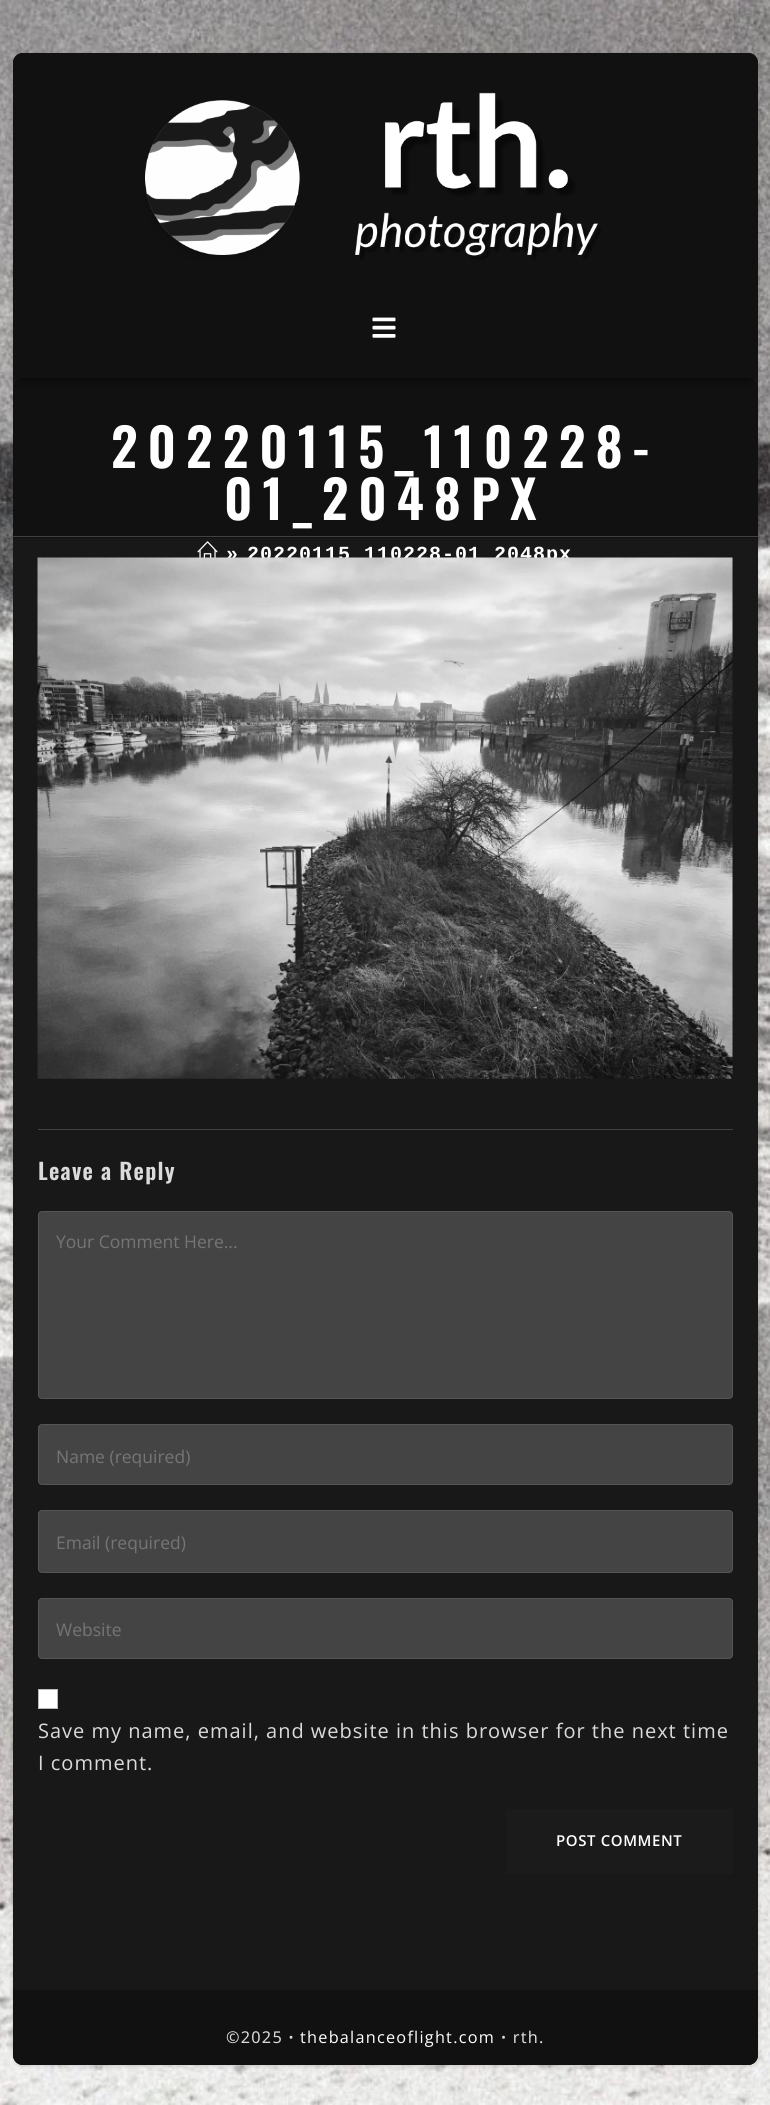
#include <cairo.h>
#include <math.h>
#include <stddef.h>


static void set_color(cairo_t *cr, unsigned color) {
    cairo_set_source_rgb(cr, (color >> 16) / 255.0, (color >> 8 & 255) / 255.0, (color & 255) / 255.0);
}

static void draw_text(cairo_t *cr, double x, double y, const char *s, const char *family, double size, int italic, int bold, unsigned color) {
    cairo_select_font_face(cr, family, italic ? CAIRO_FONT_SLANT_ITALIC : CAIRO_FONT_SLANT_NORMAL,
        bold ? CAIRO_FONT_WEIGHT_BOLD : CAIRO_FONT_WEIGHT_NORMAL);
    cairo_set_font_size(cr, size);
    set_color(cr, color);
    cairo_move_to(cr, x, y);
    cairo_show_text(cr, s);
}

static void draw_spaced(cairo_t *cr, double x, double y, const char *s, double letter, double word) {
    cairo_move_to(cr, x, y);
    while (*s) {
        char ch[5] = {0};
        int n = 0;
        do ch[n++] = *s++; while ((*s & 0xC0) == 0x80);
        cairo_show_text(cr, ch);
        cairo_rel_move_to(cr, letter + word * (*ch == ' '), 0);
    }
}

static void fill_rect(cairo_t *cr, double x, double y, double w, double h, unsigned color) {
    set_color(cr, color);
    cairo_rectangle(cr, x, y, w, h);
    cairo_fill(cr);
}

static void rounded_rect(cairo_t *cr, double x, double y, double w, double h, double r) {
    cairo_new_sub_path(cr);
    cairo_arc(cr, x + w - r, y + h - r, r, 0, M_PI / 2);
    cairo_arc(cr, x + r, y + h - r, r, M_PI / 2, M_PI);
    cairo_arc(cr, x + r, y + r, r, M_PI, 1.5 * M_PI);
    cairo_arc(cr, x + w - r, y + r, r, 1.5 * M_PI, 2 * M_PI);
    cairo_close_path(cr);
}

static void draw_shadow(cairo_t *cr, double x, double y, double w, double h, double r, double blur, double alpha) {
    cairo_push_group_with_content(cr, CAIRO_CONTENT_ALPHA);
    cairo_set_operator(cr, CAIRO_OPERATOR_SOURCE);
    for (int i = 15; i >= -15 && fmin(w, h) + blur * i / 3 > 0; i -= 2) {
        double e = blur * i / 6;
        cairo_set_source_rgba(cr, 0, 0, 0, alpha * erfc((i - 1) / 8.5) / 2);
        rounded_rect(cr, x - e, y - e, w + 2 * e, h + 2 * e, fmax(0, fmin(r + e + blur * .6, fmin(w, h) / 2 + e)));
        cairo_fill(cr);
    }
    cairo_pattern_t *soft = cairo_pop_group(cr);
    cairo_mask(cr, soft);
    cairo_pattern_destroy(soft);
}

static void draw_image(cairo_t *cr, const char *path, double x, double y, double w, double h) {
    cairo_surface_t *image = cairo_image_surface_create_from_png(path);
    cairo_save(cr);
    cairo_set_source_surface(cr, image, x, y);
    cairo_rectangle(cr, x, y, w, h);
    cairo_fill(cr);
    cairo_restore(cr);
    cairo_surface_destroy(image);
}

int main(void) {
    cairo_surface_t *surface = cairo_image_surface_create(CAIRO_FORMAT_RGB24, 770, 2105);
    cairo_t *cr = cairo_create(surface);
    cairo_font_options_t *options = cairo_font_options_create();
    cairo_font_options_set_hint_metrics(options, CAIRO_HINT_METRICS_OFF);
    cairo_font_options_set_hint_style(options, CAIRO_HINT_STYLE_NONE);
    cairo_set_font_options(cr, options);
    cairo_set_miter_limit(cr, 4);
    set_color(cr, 0xFFFFFF);
    cairo_paint(cr);
    draw_image(cr, "assets/img1.png", 0, 0, 770, 2105);
    set_color(cr, 0x000000);
    draw_shadow(cr, 13, 54, 745, 2012, 10, 2.5, 0.15);
    set_color(cr, 0x181818);
    rounded_rect(cr, 13, 53, 745, 2012, 10);
    cairo_fill(cr);
    set_color(cr, 0x111111);
    cairo_new_path(cr);
    cairo_move_to(cr, 23, 378);
    cairo_line_to(cr, 748, 378);
    cairo_curve_to(cr, 753.5, 378, 758, 382.5, 758, 388);
    cairo_line_to(cr, 758, 538);
    cairo_line_to(cr, 13, 538);
    cairo_line_to(cr, 13, 388);
    cairo_curve_to(cr, 13, 382.5, 17.5, 378, 23, 378);
    cairo_close_path(cr);
    cairo_fill(cr);
    cairo_save(cr);
    rounded_rect(cr, 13, 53, 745, 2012, 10);
    cairo_clip(cr);
    set_color(cr, 0x000000);
    draw_shadow(cr, 8, 48, 755, 335, 15, 5, 0.4);
    cairo_restore(cr);
    rounded_rect(cr, 13, 53, 745, 325, 10);
    cairo_fill(cr);
    draw_image(cr, "assets/img2.png", 145, 92, 456, 168);
    draw_image(cr, "assets/img3.png", 372, 317, 24, 21);
    fill_rect(cr, 13, 536, 745, 1, 0x424242);
    cairo_select_font_face(cr, "Oswald SemiBold", CAIRO_FONT_SLANT_NORMAL, CAIRO_FONT_WEIGHT_NORMAL);
    cairo_set_font_size(cr, 52.5);
    set_color(cr, 0xFFFFFF);
    draw_spaced(cr, 111, 468, "20220115_110228-", 10, 0);
    draw_spaced(cr, 224, 520, "01_2048PX", 10, 0);
    draw_image(cr, "assets/img4.png", 197, 541, 21, 17);
    cairo_select_font_face(cr, "Liberation Mono", CAIRO_FONT_SLANT_NORMAL, CAIRO_FONT_WEIGHT_BOLD);
    cairo_set_font_size(cr, 20);
    draw_spaced(cr, 226, 560, "»", 1, 0);
    draw_spaced(cr, 247, 560, "20220115_110228-01_2048px", 1, 0);
    draw_image(cr, "assets/img5.png", 37, 557, 696, 522);
    fill_rect(cr, 38, 1129, 695, 1, 0x424242);
    cairo_select_font_face(cr, "Oswald SemiBold", CAIRO_FONT_SLANT_NORMAL, CAIRO_FONT_WEIGHT_NORMAL);
    cairo_set_font_size(cr, 22.5);
    set_color(cr, 0xDBDBDB);
    draw_spaced(cr, 38, 1180, "Leave a Reply", 1.25, 0);
    set_color(cr, 0x444444);
    rounded_rect(cr, 38.5, 1211.5, 694, 187, 3.5);
    cairo_fill_preserve(cr);
    set_color(cr, 0x555555);
    cairo_set_line_width(cr, 1);
    cairo_stroke(cr);
    draw_text(cr, 56, 1248, "Your Comment Here...", "Open Sans", 17.5, 0, 0, 0x757575);
    set_color(cr, 0x444444);
    rounded_rect(cr, 38.5, 1424.5, 694, 60, 3.5);
    cairo_fill_preserve(cr);
    set_color(cr, 0x555555);
    cairo_stroke(cr);
    draw_text(cr, 56, 1463, "Name (required)", "Open Sans", 17.5, 0, 0, 0x757575);
    set_color(cr, 0x444444);
    rounded_rect(cr, 38.5, 1510.5, 694, 62, 3.5);
    cairo_fill_preserve(cr);
    set_color(cr, 0x555555);
    cairo_stroke(cr);
    draw_text(cr, 56, 1549, "Email (required)", "Open Sans", 17.5, 0, 0, 0x757575);
    set_color(cr, 0x444444);
    rounded_rect(cr, 38.5, 1598.5, 694, 60, 3.5);
    cairo_fill_preserve(cr);
    set_color(cr, 0x555555);
    cairo_stroke(cr);
    draw_text(cr, 56, 1636, "Website", "Open Sans", 17.5, 0, 0, 0x757575);
    set_color(cr, 0xFFFFFF);
    cairo_rectangle(cr, 38.5, 1689.5, 19, 19);
    cairo_fill_preserve(cr);
    set_color(cr, 0xBBBBBB);
    cairo_stroke(cr);
    cairo_set_font_size(cr, 20);
    set_color(cr, 0xDBDBDB);
    draw_spaced(cr, 38, 1738, "Save my name, email, and website in this browser for the next time", 1, 0);
    draw_spaced(cr, 38, 1770, "I comment.", 1, 0);
    fill_rect(cr, 506, 1809, 227, 65, 0x1B1B1B);
    cairo_select_font_face(cr, "Open Sans SemiBold", CAIRO_FONT_SLANT_NORMAL, CAIRO_FONT_WEIGHT_NORMAL);
    cairo_set_font_size(cr, 15);
    set_color(cr, 0xFFFFFF);
    draw_spaced(cr, 556, 1846, "POST COMMENT", 0.6, 0);
    cairo_save(cr);
    rounded_rect(cr, 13, 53, 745, 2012, 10);
    cairo_clip(cr);
    set_color(cr, 0x000000);
    draw_shadow(cr, 8, 1998, 755, 85, 15, 5, 0.4);
    cairo_restore(cr);
    set_color(cr, 0x111111);
    cairo_new_path(cr);
    cairo_move_to(cr, 13, 1990);
    cairo_line_to(cr, 758, 1990);
    cairo_line_to(cr, 758, 2055);
    cairo_curve_to(cr, 758, 2060.5, 753.5, 2065, 748, 2065);
    cairo_line_to(cr, 23, 2065);
    cairo_curve_to(cr, 17.5, 2065, 13, 2060.5, 13, 2055);
    cairo_close_path(cr);
    cairo_fill(cr);
    cairo_select_font_face(cr, "Noto Sans", CAIRO_FONT_SLANT_NORMAL, CAIRO_FONT_WEIGHT_NORMAL);
    cairo_set_font_size(cr, 16.25);
    set_color(cr, 0xDBDBDB);
    draw_spaced(cr, 226, 2043, "©2025 ꞏ", 1.25, 0);
    cairo_select_font_face(cr, "Open Sans", CAIRO_FONT_SLANT_NORMAL, CAIRO_FONT_WEIGHT_NORMAL);
    set_color(cr, 0xFFFFFF);
    draw_spaced(cr, 300, 2043, "thebalanceoflight.com", 1.25, 0);
    cairo_select_font_face(cr, "Noto Sans", CAIRO_FONT_SLANT_NORMAL, CAIRO_FONT_WEIGHT_NORMAL);
    set_color(cr, 0xDBDBDB);
    draw_spaced(cr, 501, 2043, "ꞏ rth.", 1.25, 0);
    cairo_surface_write_to_png(surface, "output.png");
    cairo_font_options_destroy(options);
    cairo_destroy(cr);
    cairo_surface_destroy(surface);
    return 0;
}
